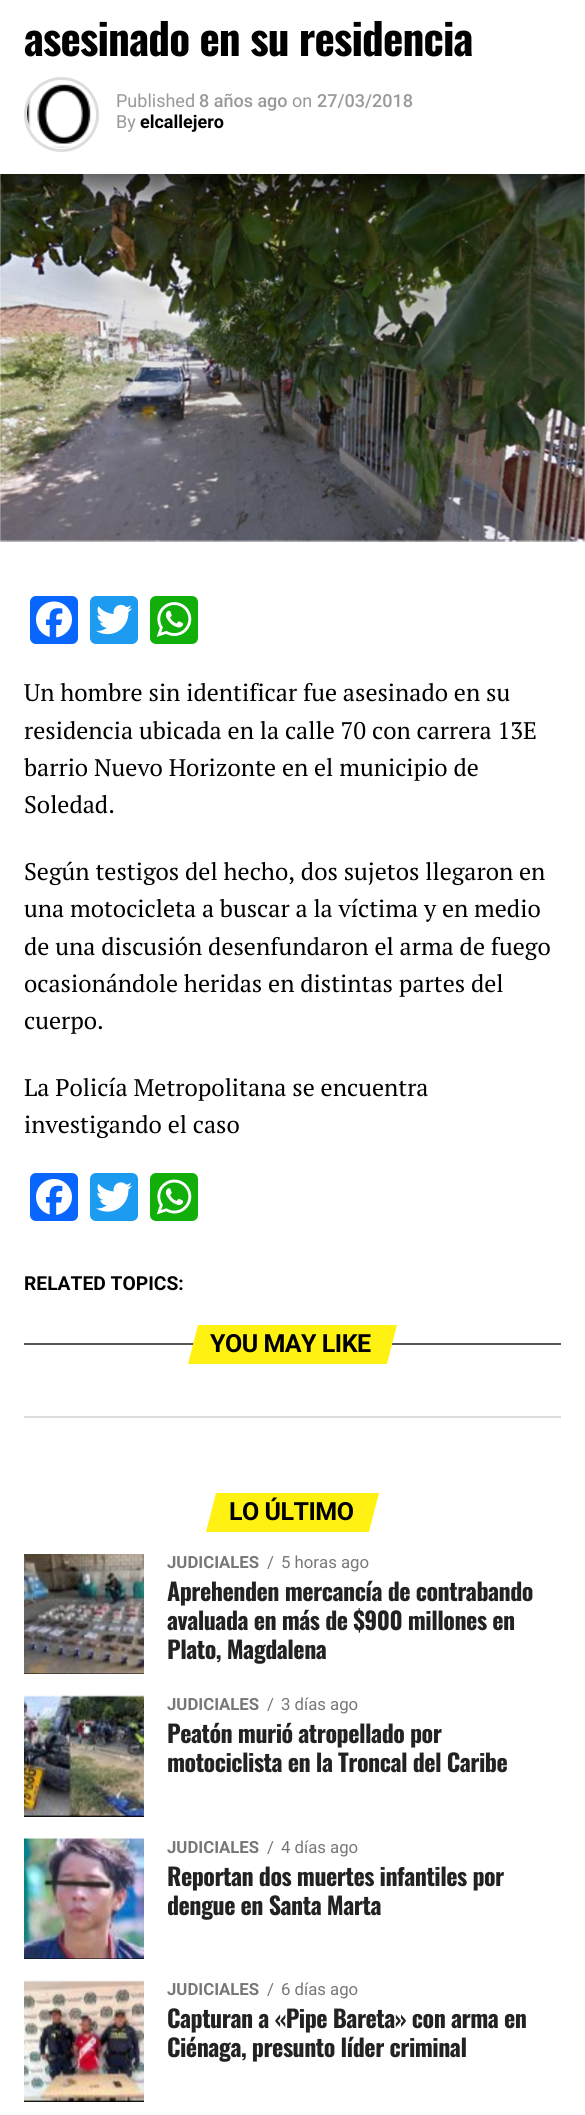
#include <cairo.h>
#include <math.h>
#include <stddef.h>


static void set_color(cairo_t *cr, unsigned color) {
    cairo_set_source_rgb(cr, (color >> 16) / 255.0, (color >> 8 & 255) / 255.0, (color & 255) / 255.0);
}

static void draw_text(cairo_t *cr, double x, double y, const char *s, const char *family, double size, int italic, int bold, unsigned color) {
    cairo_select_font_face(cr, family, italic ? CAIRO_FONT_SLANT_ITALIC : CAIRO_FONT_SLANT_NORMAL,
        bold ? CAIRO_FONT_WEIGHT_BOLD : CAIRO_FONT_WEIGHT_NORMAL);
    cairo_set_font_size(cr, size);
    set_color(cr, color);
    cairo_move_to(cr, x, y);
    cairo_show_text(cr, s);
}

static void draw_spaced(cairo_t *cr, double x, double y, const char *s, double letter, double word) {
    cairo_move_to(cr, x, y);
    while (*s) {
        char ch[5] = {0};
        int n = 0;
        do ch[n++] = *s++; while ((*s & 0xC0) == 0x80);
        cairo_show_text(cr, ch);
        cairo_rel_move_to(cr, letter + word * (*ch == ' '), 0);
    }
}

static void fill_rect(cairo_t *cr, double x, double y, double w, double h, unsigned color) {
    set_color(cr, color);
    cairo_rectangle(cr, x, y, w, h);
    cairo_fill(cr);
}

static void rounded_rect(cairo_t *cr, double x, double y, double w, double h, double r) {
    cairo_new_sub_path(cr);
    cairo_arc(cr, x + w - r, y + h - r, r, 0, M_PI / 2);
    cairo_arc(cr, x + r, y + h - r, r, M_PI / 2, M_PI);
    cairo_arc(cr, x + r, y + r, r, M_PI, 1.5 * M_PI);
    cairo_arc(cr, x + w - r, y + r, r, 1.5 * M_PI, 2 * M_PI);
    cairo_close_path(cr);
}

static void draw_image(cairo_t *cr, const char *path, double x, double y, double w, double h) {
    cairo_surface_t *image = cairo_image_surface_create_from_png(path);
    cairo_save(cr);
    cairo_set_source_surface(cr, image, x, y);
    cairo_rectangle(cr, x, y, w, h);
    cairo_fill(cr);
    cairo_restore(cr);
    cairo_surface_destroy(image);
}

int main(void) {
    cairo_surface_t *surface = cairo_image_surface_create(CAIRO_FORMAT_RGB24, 585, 2115);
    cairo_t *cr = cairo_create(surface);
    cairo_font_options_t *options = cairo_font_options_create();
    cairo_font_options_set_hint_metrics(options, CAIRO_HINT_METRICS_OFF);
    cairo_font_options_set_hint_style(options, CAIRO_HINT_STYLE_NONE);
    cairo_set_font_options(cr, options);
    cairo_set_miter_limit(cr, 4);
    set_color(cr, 0xFFFFFF);
    cairo_paint(cr);
    cairo_select_font_face(cr, "Oswald", CAIRO_FONT_SLANT_NORMAL, CAIRO_FONT_WEIGHT_BOLD);
    cairo_set_font_size(cr, 43.25);
    set_color(cr, 0x000000);
    draw_spaced(cr, 24, 56, "asesinado en su residencia", -0.85, 0);
    cairo_new_path(cr);
    cairo_arc(cr, 61.5, 114.5, 36, 0, 2 * M_PI);
    set_color(cr, 0xDDDDDD);
    cairo_set_line_width(cr, 3);
    cairo_stroke(cr);
    draw_image(cr, "assets/img1.png", 27, 84, 64, 64);
    draw_text(cr, 116, 107, "Published", "Roboto", 18, 0, 0, 0x999999);
    draw_text(cr, 199, 107, "8 años ago", "Roboto Medium", 18, 0, 0, 0x999999);
    draw_text(cr, 292, 107, "on", "Roboto", 18, 0, 0, 0x999999);
    draw_text(cr, 317, 107, "27/03/2018", "Roboto Medium", 18, 0, 0, 0x999999);
    draw_text(cr, 116, 128, "By", "Roboto", 18, 0, 0, 0x999999);
    draw_text(cr, 140, 128, "elcallejero", "Roboto", 18, 0, 1, 0x000000);
    draw_image(cr, "assets/img2.png", 0, 174, 585, 368);
    set_color(cr, 0x0866FF);
    rounded_rect(cr, 30, 596, 48, 48, 6);
    cairo_fill(cr);
    draw_image(cr, "assets/img3.png", 36, 601, 36, 37);
    set_color(cr, 0x1D9BF0);
    rounded_rect(cr, 90, 596, 48, 48, 6);
    cairo_fill(cr);
    draw_image(cr, "assets/img4.png", 96, 604, 36, 31);
    set_color(cr, 0x12AF0A);
    rounded_rect(cr, 150, 596, 48, 48, 6);
    cairo_fill(cr);
    draw_image(cr, "assets/img5.png", 156, 602, 36, 35);
    draw_text(cr, 24, 701, "Un hombre sin identificar fue asesinado en su", "PT Serif", 24, 0, 0, 0x000000);
    draw_text(cr, 24, 739, "residencia ubicada en la calle 70 con carrera 13E", "PT Serif", 24, 0, 0, 0x000000);
    draw_text(cr, 24, 776, "barrio Nuevo Horizonte en el municipio de", "PT Serif", 24, 0, 0, 0x000000);
    draw_text(cr, 24, 813, "Soledad.", "PT Serif", 24, 0, 0, 0x000000);
    draw_text(cr, 24, 880, "Según testigos del hecho, dos sujetos llegaron en", "PT Serif", 24, 0, 0, 0x000000);
    draw_text(cr, 24, 917, "una motocicleta a buscar a la víctima y en medio", "PT Serif", 24, 0, 0, 0x000000);
    draw_text(cr, 24, 955, "de una discusión desenfundaron el arma de fuego", "PT Serif", 24, 0, 0, 0x000000);
    draw_text(cr, 24, 992, "ocasionándole heridas en distintas partes del", "PT Serif", 24, 0, 0, 0x000000);
    draw_text(cr, 24, 1029, "cuerpo.", "PT Serif", 24, 0, 0, 0x000000);
    draw_text(cr, 24, 1096, "La Policía Metropolitana se encuentra", "PT Serif", 24, 0, 0, 0x000000);
    draw_text(cr, 24, 1133, "investigando el caso", "PT Serif", 24, 0, 0, 0x000000);
    set_color(cr, 0x0866FF);
    rounded_rect(cr, 30, 1173, 48, 48, 6);
    cairo_fill(cr);
    draw_image(cr, "assets/img6.png", 36, 1179, 36, 36);
    set_color(cr, 0x1D9BF0);
    rounded_rect(cr, 90, 1173, 48, 48, 6);
    cairo_fill(cr);
    draw_image(cr, "assets/img7.png", 96, 1182, 36, 30);
    set_color(cr, 0x12AF0A);
    rounded_rect(cr, 150, 1173, 48, 48, 6);
    cairo_fill(cr);
    draw_image(cr, "assets/img8.png", 156, 1179, 36, 36);
    draw_text(cr, 24, 1290, "RELATED TOPICS:", "Roboto", 19.25, 0, 1, 0x000000);
    fill_rect(cr, 24, 1343, 537, 2, 0x555555);
    set_color(cr, 0xFFF213);
    cairo_new_path(cr);
    cairo_move_to(cr, 198, 1325);
    cairo_line_to(cr, 397, 1325);
    cairo_line_to(cr, 387, 1364);
    cairo_line_to(cr, 188, 1364);
    cairo_close_path(cr);
    cairo_fill(cr);
    cairo_set_font_size(cr, 25);
    set_color(cr, 0x000000);
    draw_spaced(cr, 210, 1352, "YOU MAY LIKE", -0.5, 0);
    fill_rect(cr, 24, 1416, 537, 2, 0xDDDDDD);
    set_color(cr, 0xFFF213);
    cairo_new_path(cr);
    cairo_move_to(cr, 216, 1493);
    cairo_line_to(cr, 379, 1493);
    cairo_line_to(cr, 369, 1532);
    cairo_line_to(cr, 206, 1532);
    cairo_close_path(cr);
    cairo_fill(cr);
    set_color(cr, 0x000000);
    draw_spaced(cr, 229, 1520, "LO ÚLTIMO", -0.5, 0);
    fill_rect(cr, 24, 1673, 120, 1, 0x000000);
    draw_image(cr, "assets/img9.png", 24, 1554, 120, 120);
    draw_text(cr, 167, 1568, "JUDICIALES", "Roboto", 16.75, 0, 1, 0x777777);
    draw_text(cr, 267, 1568, "/", "Roboto", 16.75, 0, 0, 0x777777);
    draw_text(cr, 281, 1568, "5 horas ago", "Roboto", 16.75, 0, 0, 0x777777);
    cairo_select_font_face(cr, "Oswald", CAIRO_FONT_SLANT_NORMAL, CAIRO_FONT_WEIGHT_BOLD);
    cairo_set_font_size(cr, 24);
    set_color(cr, 0x222222);
    draw_spaced(cr, 167, 1601, "Aprehenden mercancía de contrabando", -0.5, 0);
    draw_spaced(cr, 167, 1630, "avaluada en más de $900 millones en", -0.5, 0);
    draw_spaced(cr, 167, 1659, "Plato, Magdalena", -0.5, 0);
    fill_rect(cr, 24, 1815, 120, 2, 0x000000);
    draw_image(cr, "assets/img10.png", 24, 1695, 120, 122);
    draw_text(cr, 167, 1710, "JUDICIALES", "Roboto", 16.75, 0, 1, 0x777777);
    draw_text(cr, 267, 1710, "/", "Roboto", 16.75, 0, 0, 0x777777);
    draw_text(cr, 281, 1710, "3 días ago", "Roboto", 16.75, 0, 0, 0x777777);
    cairo_select_font_face(cr, "Oswald", CAIRO_FONT_SLANT_NORMAL, CAIRO_FONT_WEIGHT_BOLD);
    cairo_set_font_size(cr, 24);
    set_color(cr, 0x222222);
    draw_spaced(cr, 167, 1743, "Peatón murió atropellado por", -0.5, 0);
    draw_spaced(cr, 167, 1772, "motociclista en la Troncal del Caribe", -0.5, 0);
    fill_rect(cr, 24, 1958, 120, 1, 0x000000);
    draw_image(cr, "assets/img11.png", 24, 1838, 120, 121);
    draw_text(cr, 167, 1853, "JUDICIALES", "Roboto", 16.75, 0, 1, 0x777777);
    draw_text(cr, 267, 1853, "/", "Roboto", 16.75, 0, 0, 0x777777);
    draw_text(cr, 281, 1853, "4 días ago", "Roboto", 16.75, 0, 0, 0x777777);
    cairo_select_font_face(cr, "Oswald", CAIRO_FONT_SLANT_NORMAL, CAIRO_FONT_WEIGHT_BOLD);
    cairo_set_font_size(cr, 24);
    set_color(cr, 0x222222);
    draw_spaced(cr, 167, 1886, "Reportan dos muertes infantiles por", -0.5, 0);
    draw_spaced(cr, 167, 1915, "dengue en Santa Marta", -0.5, 0);
    fill_rect(cr, 24, 2100, 120, 2, 0x000000);
    draw_image(cr, "assets/img12.png", 24, 1980, 120, 122);
    draw_text(cr, 167, 1995, "JUDICIALES", "Roboto", 16.75, 0, 1, 0x777777);
    draw_text(cr, 267, 1995, "/", "Roboto", 16.75, 0, 0, 0x777777);
    draw_text(cr, 281, 1995, "6 días ago", "Roboto", 16.75, 0, 0, 0x777777);
    cairo_select_font_face(cr, "Oswald", CAIRO_FONT_SLANT_NORMAL, CAIRO_FONT_WEIGHT_BOLD);
    cairo_set_font_size(cr, 24);
    set_color(cr, 0x222222);
    draw_spaced(cr, 167, 2028, "Capturan a «Pipe Bareta» con arma en", -0.5, 0);
    draw_spaced(cr, 167, 2057, "Ciénaga, presunto líder criminal", -0.5, 0);
    cairo_surface_write_to_png(surface, "output.png");
    cairo_font_options_destroy(options);
    cairo_destroy(cr);
    cairo_surface_destroy(surface);
    return 0;
}
